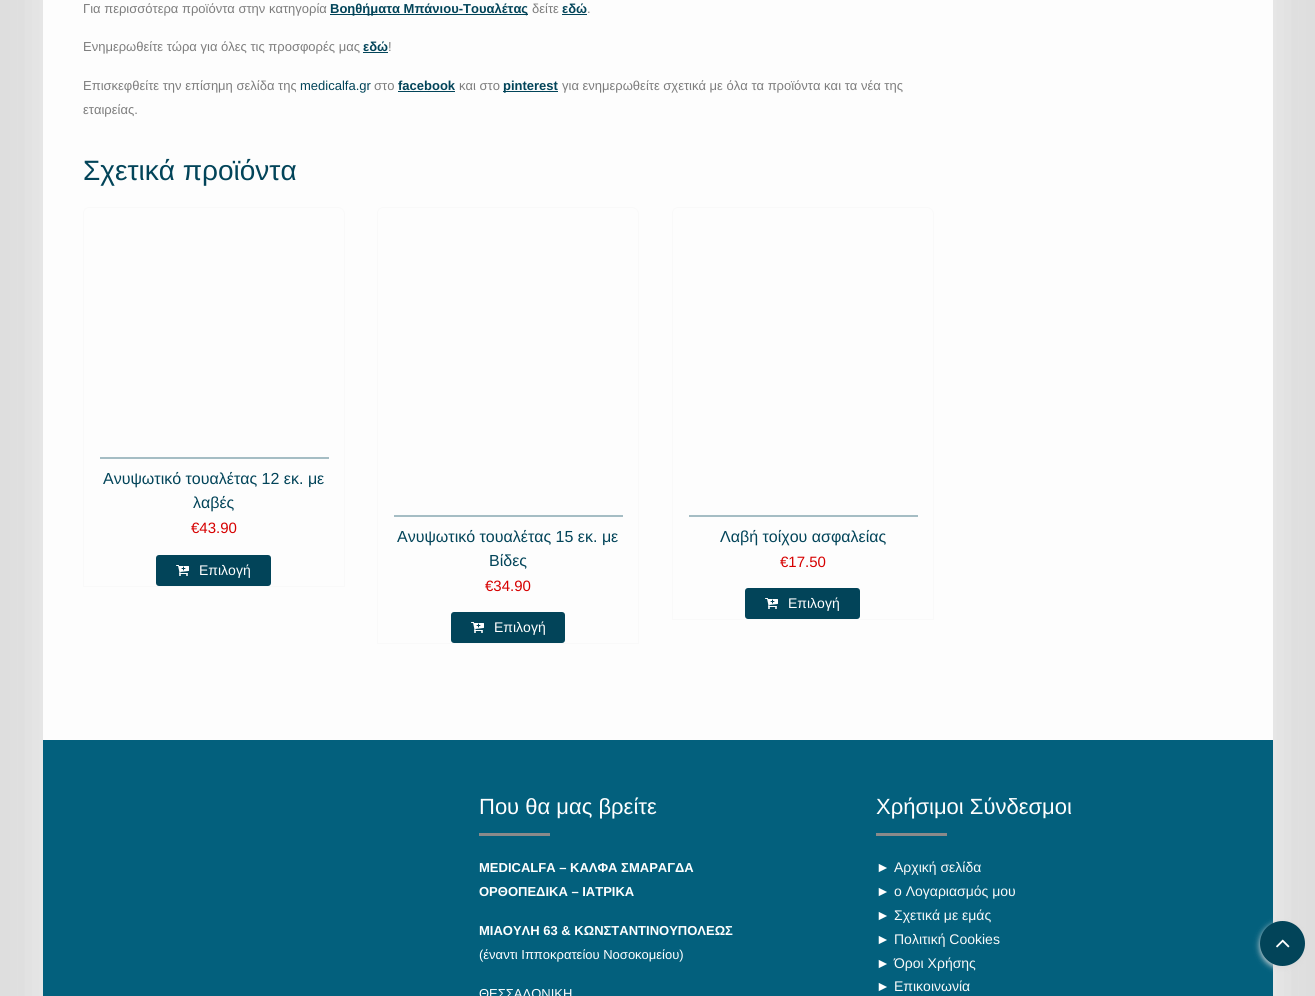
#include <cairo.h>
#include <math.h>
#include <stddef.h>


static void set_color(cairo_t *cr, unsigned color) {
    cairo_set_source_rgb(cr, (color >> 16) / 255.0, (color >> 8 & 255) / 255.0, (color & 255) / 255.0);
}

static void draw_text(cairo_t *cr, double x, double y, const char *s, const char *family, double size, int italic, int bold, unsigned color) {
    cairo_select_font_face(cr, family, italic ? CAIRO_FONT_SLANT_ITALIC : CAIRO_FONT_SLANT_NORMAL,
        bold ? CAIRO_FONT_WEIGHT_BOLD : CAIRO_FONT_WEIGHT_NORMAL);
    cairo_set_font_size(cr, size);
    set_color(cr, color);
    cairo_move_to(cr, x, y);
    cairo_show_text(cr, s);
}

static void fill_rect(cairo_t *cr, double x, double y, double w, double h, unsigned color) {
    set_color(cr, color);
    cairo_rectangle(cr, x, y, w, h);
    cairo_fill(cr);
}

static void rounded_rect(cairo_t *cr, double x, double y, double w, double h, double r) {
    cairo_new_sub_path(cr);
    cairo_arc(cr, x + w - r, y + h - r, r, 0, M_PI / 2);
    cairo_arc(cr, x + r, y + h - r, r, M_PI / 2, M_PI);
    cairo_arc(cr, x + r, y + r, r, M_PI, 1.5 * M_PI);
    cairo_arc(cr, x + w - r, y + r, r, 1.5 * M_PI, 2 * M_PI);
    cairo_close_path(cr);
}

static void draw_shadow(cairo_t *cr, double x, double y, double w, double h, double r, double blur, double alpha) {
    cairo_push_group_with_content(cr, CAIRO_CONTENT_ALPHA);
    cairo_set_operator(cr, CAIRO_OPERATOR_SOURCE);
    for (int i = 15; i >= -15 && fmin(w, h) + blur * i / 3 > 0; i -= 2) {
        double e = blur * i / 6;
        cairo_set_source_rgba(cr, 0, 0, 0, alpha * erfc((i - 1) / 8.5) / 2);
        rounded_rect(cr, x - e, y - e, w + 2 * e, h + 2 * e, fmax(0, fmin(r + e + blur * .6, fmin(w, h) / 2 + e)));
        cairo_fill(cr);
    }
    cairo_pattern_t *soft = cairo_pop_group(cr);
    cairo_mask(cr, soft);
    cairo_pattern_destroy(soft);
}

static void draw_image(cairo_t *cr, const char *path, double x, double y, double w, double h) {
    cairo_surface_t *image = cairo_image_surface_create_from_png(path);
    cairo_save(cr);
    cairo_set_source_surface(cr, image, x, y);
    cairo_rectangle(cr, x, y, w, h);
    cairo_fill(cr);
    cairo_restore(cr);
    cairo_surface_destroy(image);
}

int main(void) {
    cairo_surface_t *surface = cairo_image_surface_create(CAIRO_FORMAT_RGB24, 1315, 996);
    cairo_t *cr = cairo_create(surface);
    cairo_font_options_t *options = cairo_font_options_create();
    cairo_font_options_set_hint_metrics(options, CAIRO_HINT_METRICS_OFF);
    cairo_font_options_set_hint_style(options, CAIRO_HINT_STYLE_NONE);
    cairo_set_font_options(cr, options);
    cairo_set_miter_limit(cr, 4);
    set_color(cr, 0xDDDDDD);
    cairo_paint(cr);
    set_color(cr, 0xEFEFEF);
    draw_shadow(cr, 43, -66, 1230, 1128, 0, 22, 1);
    fill_rect(cr, 43, 0, 1230, 740, 0xFDFDFD);
    draw_text(cr, 83, 13, "Για περισσότερα προϊόντα στην κατηγορία", "Liberation Sans", 13, 0, 0, 0x7D7D7D);
    fill_rect(cr, 330, 14, 198, 1, 0x024459);
    draw_text(cr, 330, 13, "Βοηθήματα Μπάνιου-Τουαλέτας", "Liberation Sans", 13, 0, 1, 0x024459);
    draw_text(cr, 532, 13, "δείτε", "Liberation Sans", 13, 0, 0, 0x7D7D7D);
    draw_text(cr, 562, 13, "εδώ", "Liberation Sans", 13, 0, 1, 0x024459);
    draw_text(cr, 587, 13, ".", "Liberation Sans", 13, 0, 0, 0x7D7D7D);
    fill_rect(cr, 562, 14, 25, 1, 0x024459);
    draw_text(cr, 83, 51, "Ενημερωθείτε τώρα για όλες τις προσφορές μας", "Liberation Sans", 13, 0, 0, 0x7D7D7D);
    draw_text(cr, 363, 51, "εδώ", "Liberation Sans", 13, 0, 1, 0x024459);
    fill_rect(cr, 363, 52, 25, 1, 0x024459);
    draw_text(cr, 388, 51, "!", "Liberation Sans", 13, 0, 0, 0x7D7D7D);
    draw_text(cr, 83, 90, "Επισκεφθείτε την επίσημη σελίδα της", "Liberation Sans", 13, 0, 0, 0x7D7D7D);
    draw_text(cr, 300, 90, "medicalfa.gr", "Liberation Sans", 13, 0, 0, 0x024459);
    draw_text(cr, 374, 90, "στο", "Liberation Sans", 13, 0, 0, 0x7D7D7D);
    fill_rect(cr, 398, 91, 57, 1, 0x024459);
    draw_text(cr, 398, 90, "facebook", "Liberation Sans", 13, 0, 1, 0x024459);
    draw_text(cr, 459, 90, "και στο", "Liberation Sans", 13, 0, 0, 0x7D7D7D);
    fill_rect(cr, 503, 91, 55, 1, 0x024459);
    draw_text(cr, 503, 90, "pinterest", "Liberation Sans", 13, 0, 1, 0x024459);
    draw_text(cr, 562, 90, "για ενημερωθείτε σχετικά με όλα τα προϊόντα και τα νέα της", "Liberation Sans", 13, 0, 0, 0x7D7D7D);
    draw_text(cr, 83, 114, "εταιρείας.", "Liberation Sans", 13, 0, 0, 0x7D7D7D);
    draw_text(cr, 83, 180, "Σχετικά προϊόντα", "Liberation Sans", 28, 0, 0, 0x024459);
    cairo_new_path(cr);
    cairo_move_to(cr, 89, 207.5);
    cairo_line_to(cr, 338, 207.5);
    cairo_curve_to(cr, 341.5, 207.5, 344.5, 210.5, 344.5, 214);
    cairo_line_to(cr, 344.5, 586.5);
    cairo_line_to(cr, 83.5, 586.5);
    cairo_line_to(cr, 83.5, 213);
    cairo_curve_to(cr, 83.5, 210, 86, 207.5, 89, 207.5);
    cairo_close_path(cr);
    set_color(cr, 0xF9F9F9);
    cairo_set_line_width(cr, 1);
    cairo_stroke(cr);
    fill_rect(cr, 100, 457, 229, 2, 0xA5BDC4);
    draw_text(cr, 103, 484, "Ανυψωτικό τουαλέτας 12 εκ. με", "Liberation Sans", 16, 0, 0, 0x024459);
    draw_text(cr, 193, 508, "λαβές", "Liberation Sans", 16, 0, 0, 0x024459);
    draw_text(cr, 191, 533, "€43.90", "Liberation Sans", 15, 0, 0, 0xD60000);
    set_color(cr, 0x024459);
    rounded_rect(cr, 156, 555, 115, 31, 3);
    cairo_fill(cr);
    draw_image(cr, "assets/img1.png", 176, 565, 13, 11);
    draw_text(cr, 199, 575, "Επιλογή", "Liberation Sans", 14, 0, 0, 0xFFFFFF);
    cairo_new_path(cr);
    cairo_move_to(cr, 383, 207.5);
    cairo_line_to(cr, 632, 207.5);
    cairo_curve_to(cr, 635.5, 207.5, 638.5, 210.5, 638.5, 214);
    cairo_line_to(cr, 638.5, 643.5);
    cairo_line_to(cr, 377.5, 643.5);
    cairo_line_to(cr, 377.5, 213);
    cairo_curve_to(cr, 377.5, 210, 380, 207.5, 383, 207.5);
    cairo_close_path(cr);
    set_color(cr, 0xF9F9F9);
    cairo_stroke(cr);
    fill_rect(cr, 394, 515, 229, 2, 0xA5BDC4);
    draw_text(cr, 397, 542, "Ανυψωτικό τουαλέτας 15 εκ. με", "Liberation Sans", 16, 0, 0, 0x024459);
    draw_text(cr, 489, 566, "Βίδες", "Liberation Sans", 16, 0, 0, 0x024459);
    draw_text(cr, 485, 591, "€34.90", "Liberation Sans", 15, 0, 0, 0xD60000);
    set_color(cr, 0x024459);
    rounded_rect(cr, 451, 612, 114, 31, 3);
    cairo_fill(cr);
    draw_image(cr, "assets/img1.png", 471, 622, 13, 11);
    draw_text(cr, 494, 632, "Επιλογή", "Liberation Sans", 14, 0, 0, 0xFFFFFF);
    cairo_new_path(cr);
    cairo_move_to(cr, 678, 207.5);
    cairo_line_to(cr, 927, 207.5);
    cairo_curve_to(cr, 930.5, 207.5, 933.5, 210.5, 933.5, 214);
    cairo_line_to(cr, 933.5, 619.5);
    cairo_line_to(cr, 672.5, 619.5);
    cairo_line_to(cr, 672.5, 213);
    cairo_curve_to(cr, 672.5, 210, 675, 207.5, 678, 207.5);
    cairo_close_path(cr);
    set_color(cr, 0xF9F9F9);
    cairo_stroke(cr);
    fill_rect(cr, 689, 515, 229, 2, 0xA5BDC4);
    draw_text(cr, 720, 542, "Λαβή τοίχου ασφαλείας", "Liberation Sans", 16, 0, 0, 0x024459);
    draw_text(cr, 780, 567, "€17.50", "Liberation Sans", 15, 0, 0, 0xD60000);
    set_color(cr, 0x024459);
    rounded_rect(cr, 745, 588, 115, 31, 3);
    cairo_fill(cr);
    draw_image(cr, "assets/img1.png", 765, 598, 13, 11);
    draw_text(cr, 788, 608, "Επιλογή", "Liberation Sans", 14, 0, 0, 0xFFFFFF);
    fill_rect(cr, 43, 740, 1230, 256, 0x03607D);
    draw_text(cr, 479, 814, "Που θα μας βρείτε", "Liberation Sans", 22, 0, 0, 0xFFFFFF);
    fill_rect(cr, 479, 833, 71, 3, 0x8A8A8A);
    draw_text(cr, 479, 872, "MEDICALFA – KAΛΦΑ ΣΜΑΡΑΓΔΑ", "Liberation Sans", 13, 0, 1, 0xFFFFFF);
    draw_text(cr, 479, 896, "ΟΡΘΟΠΕΔΙΚΑ – ΙΑΤΡΙΚΑ", "Liberation Sans", 13, 0, 1, 0xFFFFFF);
    draw_text(cr, 479, 935, "ΜΙΑΟΥΛΗ 63 & ΚΩΝΣΤΑΝΤΙΝΟΥΠΟΛΕΩΣ", "Liberation Sans", 13, 0, 1, 0xFFFFFF);
    draw_text(cr, 479, 959, "(έναντι Ιπποκρατείου Νοσοκομείου)", "Liberation Sans", 13, 0, 0, 0xFFFFFF);
    draw_text(cr, 479, 998, "ΘΕΣΣΑΛΟΝΙΚΗ", "Liberation Sans", 13, 0, 0, 0xFFFFFF);
    draw_text(cr, 876, 814, "Χρήσιμοι Σύνδεσμοι", "Liberation Sans", 22, 0, 0, 0xFFFFFF);
    fill_rect(cr, 876, 833, 71, 3, 0x8A8A8A);
    draw_text(cr, 876, 872, "►", "Liberation Sans", 14, 0, 0, 0xFFFFFF);
    draw_text(cr, 894, 872, "Αρχική σελίδα", "Liberation Sans", 14, 0, 0, 0xF9F9F9);
    draw_text(cr, 876, 896, "►", "Liberation Sans", 14, 0, 0, 0xFFFFFF);
    draw_text(cr, 894, 896, "ο Λογαριασμός μου", "Liberation Sans", 14, 0, 0, 0xF9F9F9);
    draw_text(cr, 876, 920, "►", "Liberation Sans", 14, 0, 0, 0xFFFFFF);
    draw_text(cr, 894, 920, "Σχετικά με εμάς", "Liberation Sans", 14, 0, 0, 0xF9F9F9);
    draw_text(cr, 876, 944, "►", "Liberation Sans", 14, 0, 0, 0xFFFFFF);
    draw_text(cr, 894, 944, "Πολιτική Cookies", "Liberation Sans", 14, 0, 0, 0xF9F9F9);
    draw_text(cr, 876, 968, "►", "Liberation Sans", 14, 0, 0, 0xFFFFFF);
    draw_text(cr, 894, 968, "Όροι Χρήσης", "Liberation Sans", 14, 0, 0, 0xF9F9F9);
    draw_text(cr, 876, 991, "►", "Liberation Sans", 14, 0, 0, 0xFFFFFF);
    draw_text(cr, 894, 991, "Επικοινωνία", "Liberation Sans", 14, 0, 0, 0xF9F9F9);
    set_color(cr, 0xDADADA);
    draw_shadow(cr, 1260, 923, 45, 45, 22.5, 3, 1);
    set_color(cr, 0x024459);
    cairo_arc(cr, 1282.5, 943.5, 22.5, 0, 2 * M_PI);
    cairo_fill(cr);
    draw_image(cr, "assets/img2.png", 1276, 939, 14, 9);
    cairo_surface_write_to_png(surface, "output.png");
    cairo_font_options_destroy(options);
    cairo_destroy(cr);
    cairo_surface_destroy(surface);
    return 0;
}
